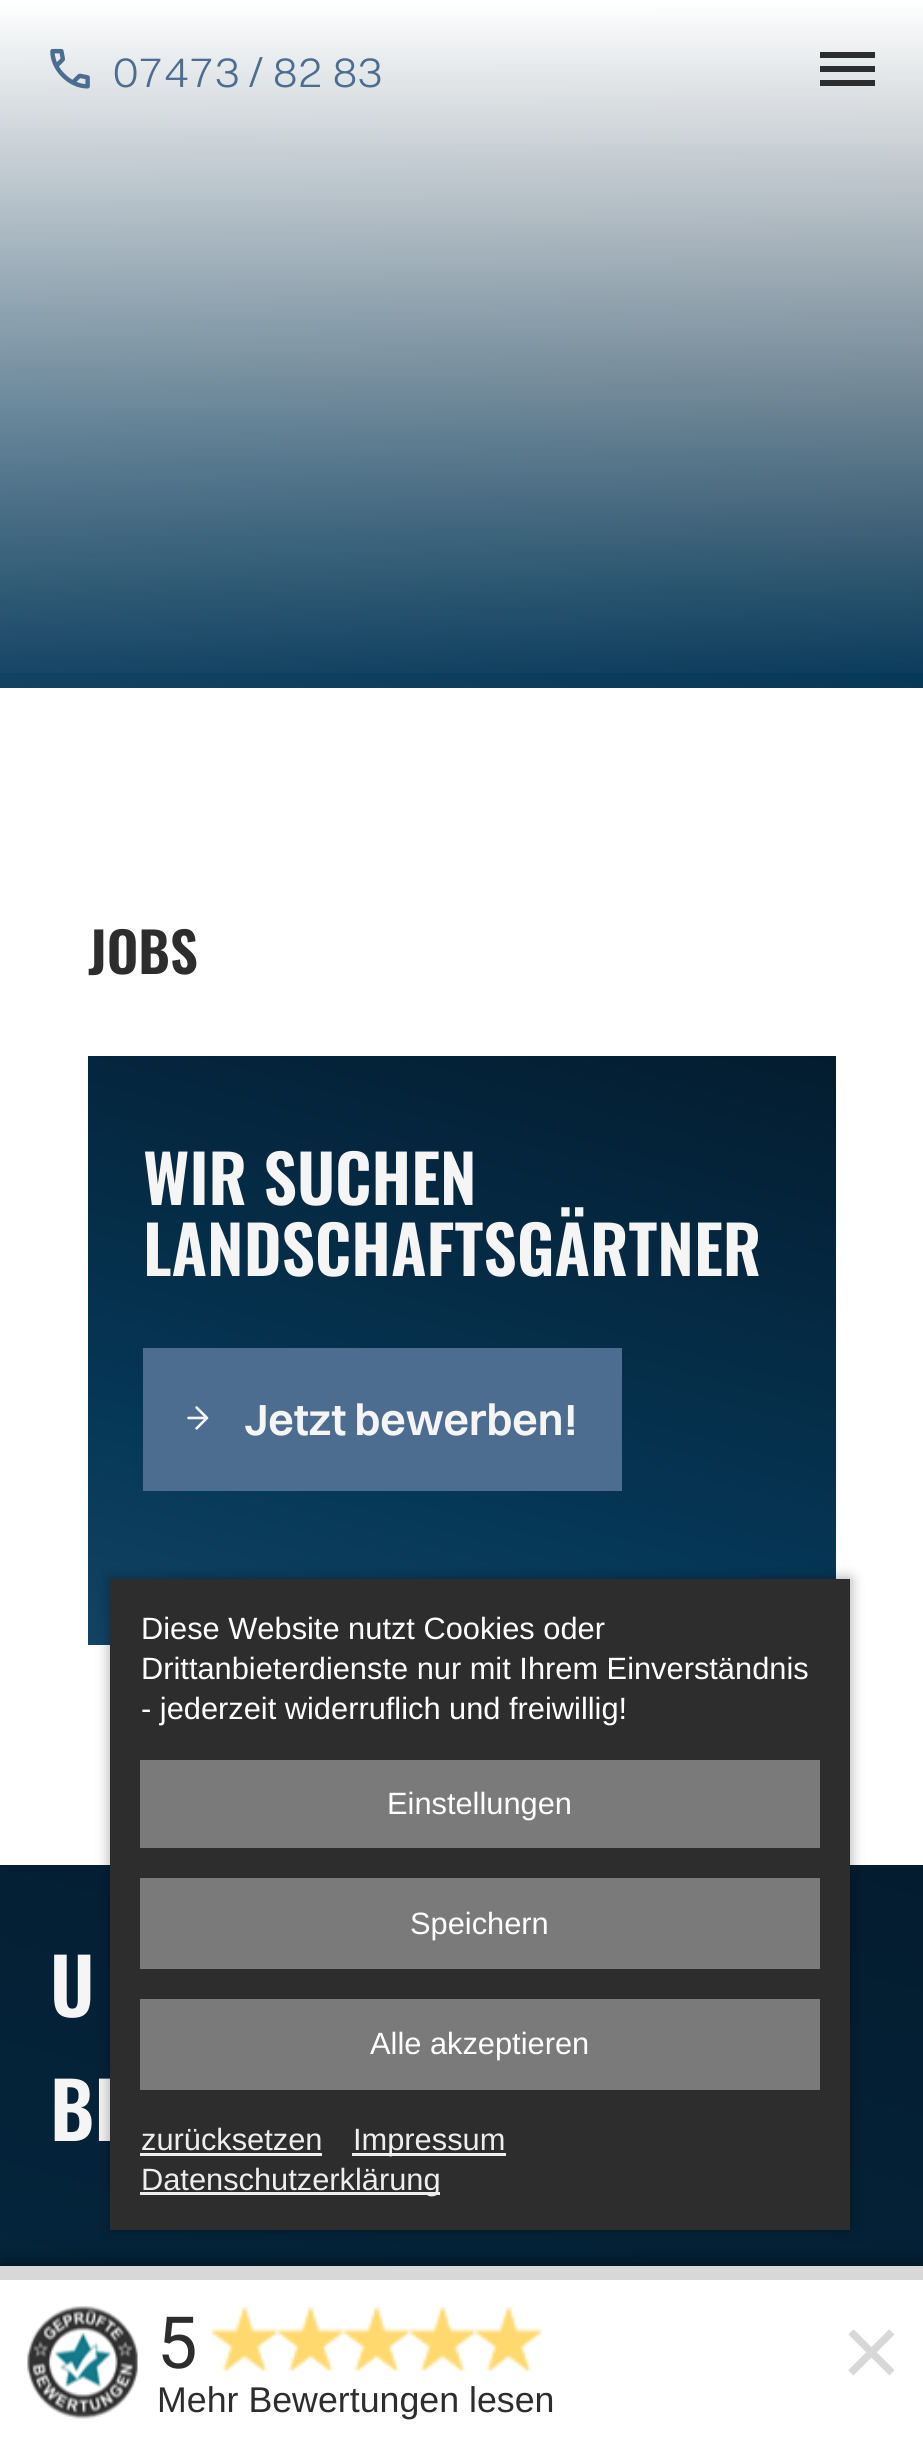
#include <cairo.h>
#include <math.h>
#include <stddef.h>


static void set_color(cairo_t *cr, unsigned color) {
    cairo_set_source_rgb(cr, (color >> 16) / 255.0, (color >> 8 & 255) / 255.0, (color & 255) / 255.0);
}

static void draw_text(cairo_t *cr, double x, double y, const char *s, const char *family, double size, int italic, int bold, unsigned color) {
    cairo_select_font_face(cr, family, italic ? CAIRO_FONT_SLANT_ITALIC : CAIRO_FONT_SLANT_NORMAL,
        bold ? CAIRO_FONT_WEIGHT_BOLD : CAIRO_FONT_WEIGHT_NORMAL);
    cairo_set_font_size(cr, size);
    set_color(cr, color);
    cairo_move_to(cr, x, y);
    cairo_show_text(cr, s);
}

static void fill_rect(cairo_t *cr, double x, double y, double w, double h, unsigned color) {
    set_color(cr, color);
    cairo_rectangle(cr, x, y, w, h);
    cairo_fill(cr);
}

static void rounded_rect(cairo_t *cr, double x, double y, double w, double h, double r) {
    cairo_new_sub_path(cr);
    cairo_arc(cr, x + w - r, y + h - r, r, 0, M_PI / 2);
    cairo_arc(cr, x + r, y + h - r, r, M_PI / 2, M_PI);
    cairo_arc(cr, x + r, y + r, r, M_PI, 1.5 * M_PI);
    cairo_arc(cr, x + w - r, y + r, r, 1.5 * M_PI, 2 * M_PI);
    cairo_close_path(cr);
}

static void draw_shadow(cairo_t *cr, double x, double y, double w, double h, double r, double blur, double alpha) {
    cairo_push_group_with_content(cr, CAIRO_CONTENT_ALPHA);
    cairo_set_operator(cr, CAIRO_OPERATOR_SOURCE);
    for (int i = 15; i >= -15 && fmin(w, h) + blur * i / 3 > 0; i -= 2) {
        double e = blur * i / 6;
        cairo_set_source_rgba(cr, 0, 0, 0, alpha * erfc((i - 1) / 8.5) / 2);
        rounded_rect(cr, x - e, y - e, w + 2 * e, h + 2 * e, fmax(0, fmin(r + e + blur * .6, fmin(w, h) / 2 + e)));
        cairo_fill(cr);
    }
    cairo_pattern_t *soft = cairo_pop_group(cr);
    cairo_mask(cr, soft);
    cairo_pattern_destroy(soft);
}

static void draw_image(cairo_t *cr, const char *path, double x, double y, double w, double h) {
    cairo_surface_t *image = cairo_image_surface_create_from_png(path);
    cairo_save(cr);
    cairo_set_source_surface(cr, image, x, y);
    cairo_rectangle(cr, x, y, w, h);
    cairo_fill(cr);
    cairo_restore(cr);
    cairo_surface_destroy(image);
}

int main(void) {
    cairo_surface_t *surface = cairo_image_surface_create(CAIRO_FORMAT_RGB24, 923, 2449);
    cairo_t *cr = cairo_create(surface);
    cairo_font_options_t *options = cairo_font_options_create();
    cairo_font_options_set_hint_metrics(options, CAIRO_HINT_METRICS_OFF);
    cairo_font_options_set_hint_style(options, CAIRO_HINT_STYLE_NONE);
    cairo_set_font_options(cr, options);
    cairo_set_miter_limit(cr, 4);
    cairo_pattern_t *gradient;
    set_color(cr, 0xFFFFFF);
    cairo_paint(cr);
    gradient = cairo_pattern_create_linear(579, -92, 345, 780);
    cairo_pattern_add_color_stop_rgba(gradient, 0, 0.016, 0.11, 0.184, 1);
    cairo_pattern_add_color_stop_rgba(gradient, 0.7, 0.02, 0.216, 0.341, 1);
    cairo_pattern_add_color_stop_rgba(gradient, 1, 0.071, 0.263, 0.388, 1);
    cairo_set_source(cr, gradient);
    cairo_pattern_destroy(gradient);
    cairo_rectangle(cr, 0, 4, 923, 684);
    cairo_fill(cr);
    gradient = cairo_pattern_create_linear(462, 0, 462, 688);
    cairo_pattern_add_color_stop_rgba(gradient, 0, 1, 1, 1, 1);
    cairo_pattern_add_color_stop_rgba(gradient, 1, 1, 1, 1, 0);
    cairo_set_source(cr, gradient);
    cairo_pattern_destroy(gradient);
    cairo_rectangle(cr, 0, 4, 923, 669);
    cairo_fill(cr);
    draw_image(cr, "assets/img1.png", 50, 48, 40, 41);
    draw_text(cr, 113, 87, "07473 / 82 83", "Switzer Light", 44, 0, 0, 0x4C6D8F);
    fill_rect(cr, 820, 66, 55, 6, 0x2D2D2D);
    fill_rect(cr, 820, 52, 55, 6, 0x2D2D2D);
    fill_rect(cr, 820, 80, 55, 6, 0x2D2D2D);
    draw_text(cr, 88, 974, "JOBS", "Oswald SemiBold", 55, 0, 0, 0x2D2D2D);
    gradient = cairo_pattern_create_linear(561, 982, 363, 1718);
    cairo_pattern_add_color_stop_rgba(gradient, 0, 0.016, 0.11, 0.184, 1);
    cairo_pattern_add_color_stop_rgba(gradient, 0.7, 0.02, 0.216, 0.341, 1);
    cairo_pattern_add_color_stop_rgba(gradient, 1, 0.071, 0.263, 0.388, 1);
    cairo_set_source(cr, gradient);
    cairo_pattern_destroy(gradient);
    cairo_rectangle(cr, 88, 1056, 748, 589);
    cairo_fill(cr);
    draw_text(cr, 143, 1205, "WIR SUCHEN", "Oswald SemiBold", 66, 0, 0, 0xF5F5F5);
    draw_text(cr, 143, 1276, "LANDSCHAFTSGÄRTNER", "Oswald SemiBold", 66, 0, 0, 0xF5F5F5);
    fill_rect(cr, 143, 1348, 479, 143, 0x4C6D8F);
    draw_image(cr, "assets/img2.png", 187, 1406, 22, 24);
    draw_text(cr, 244, 1435, "Jetzt bewerben!", "Switzer SemiBold", 44, 0, 0, 0xF5F5F5);
    gradient = cairo_pattern_create_linear(814, 1835, 110, 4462);
    cairo_pattern_add_color_stop_rgba(gradient, 0, 0.016, 0.11, 0.184, 1);
    cairo_pattern_add_color_stop_rgba(gradient, 0.7, 0.02, 0.216, 0.341, 1);
    cairo_pattern_add_color_stop_rgba(gradient, 1, 0.071, 0.263, 0.388, 1);
    cairo_set_source(cr, gradient);
    cairo_pattern_destroy(gradient);
    cairo_rectangle(cr, 0, 1865, 923, 401);
    cairo_fill(cr);
    draw_text(cr, 50, 2017, "U", "Oswald SemiBold", 77, 0, 0, 0xF5F5F5);
    draw_text(cr, 50, 2141, "BE", "Oswald SemiBold", 77, 0, 0, 0xF5F5F5);
    set_color(cr, 0x000000);
    draw_shadow(cr, 110, 1579, 740, 651, 0, 7, 0.35);
    fill_rect(cr, 110, 1579, 740, 651, 0x2D2D2D);
    draw_text(cr, 141, 1639, "Diese Website nutzt Cookies oder", "Liberation Sans", 30.8, 0, 0, 0xFFFFFF);
    draw_text(cr, 141, 1679, "Drittanbieterdienste nur mit Ihrem Einverständnis", "Liberation Sans", 30.8, 0, 0, 0xFFFFFF);
    draw_text(cr, 141, 1719, "- jederzeit widerruflich und freiwillig!", "Liberation Sans", 30.8, 0, 0, 0xFFFFFF);
    fill_rect(cr, 140, 1760, 680, 88, 0x7A7A7A);
    draw_text(cr, 387, 1814, "Einstellungen", "Liberation Sans", 30.8, 0, 0, 0xFFFFFF);
    fill_rect(cr, 140, 1878, 680, 91, 0x7A7A7A);
    draw_text(cr, 410, 1934, "Speichern", "Liberation Sans", 30.8, 0, 0, 0xFFFFFF);
    fill_rect(cr, 140, 1999, 680, 91, 0x7A7A7A);
    draw_text(cr, 370, 2054, "Alle akzeptieren", "Liberation Sans", 30.8, 0, 0, 0xFFFFFF);
    draw_text(cr, 141, 2150, "zurücksetzen", "Liberation Sans", 30.8, 0, 0, 0xEEEEEE);
    fill_rect(cr, 140, 2153, 182, 3, 0xEEEEEE);
    fill_rect(cr, 352, 2153, 154, 3, 0xEEEEEE);
    draw_text(cr, 353, 2150, "Impressum", "Liberation Sans", 30.8, 0, 0, 0xEEEEEE);
    fill_rect(cr, 140, 2192, 300, 3, 0xEEEEEE);
    draw_text(cr, 141, 2190, "Datenschutzerklärung", "Liberation Sans", 30.8, 0, 0, 0xEEEEEE);
    set_color(cr, 0x000000);
    draw_shadow(cr, 0, 2269, 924, 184, 0, 14, 0.75);
    fill_rect(cr, 0, 2280, 923, 169, 0xFFFFFF);
    draw_image(cr, "assets/img3.png", 27, 2306, 111, 113);
    fill_rect(cr, 0, 2266, 923, 14, 0xD8D8D8);
    draw_text(cr, 157, 2368, "5", "Roboto", 72, 0, 0, 0x2D2D2D);
    draw_image(cr, "assets/img4.png", 211, 2307, 67, 65);
    draw_image(cr, "assets/img5.png", 277, 2307, 67, 65);
    draw_image(cr, "assets/img5.png", 343, 2307, 67, 65);
    draw_image(cr, "assets/img5.png", 409, 2307, 67, 65);
    draw_image(cr, "assets/img5.png", 475, 2307, 67, 65);
    draw_text(cr, 157, 2412, "Mehr Bewertungen lesen", "Liberation Sans", 35.75, 0, 0, 0x2D2D2D);
    draw_text(cr, 841, 2387, "×", "Liberation Sans", 104, 0, 0, 0xD8D8D8);
    cairo_surface_write_to_png(surface, "output.png");
    cairo_font_options_destroy(options);
    cairo_destroy(cr);
    cairo_surface_destroy(surface);
    return 0;
}
